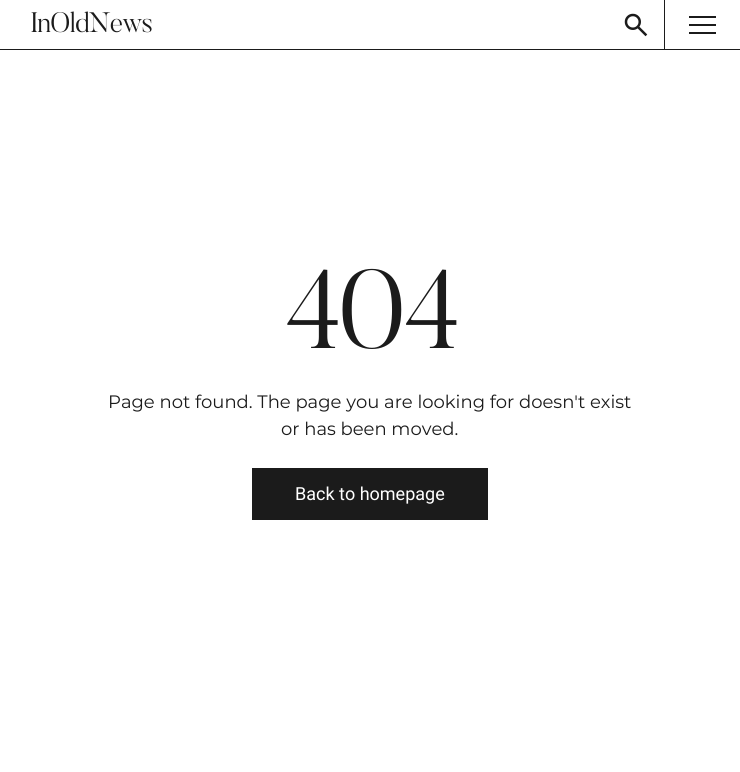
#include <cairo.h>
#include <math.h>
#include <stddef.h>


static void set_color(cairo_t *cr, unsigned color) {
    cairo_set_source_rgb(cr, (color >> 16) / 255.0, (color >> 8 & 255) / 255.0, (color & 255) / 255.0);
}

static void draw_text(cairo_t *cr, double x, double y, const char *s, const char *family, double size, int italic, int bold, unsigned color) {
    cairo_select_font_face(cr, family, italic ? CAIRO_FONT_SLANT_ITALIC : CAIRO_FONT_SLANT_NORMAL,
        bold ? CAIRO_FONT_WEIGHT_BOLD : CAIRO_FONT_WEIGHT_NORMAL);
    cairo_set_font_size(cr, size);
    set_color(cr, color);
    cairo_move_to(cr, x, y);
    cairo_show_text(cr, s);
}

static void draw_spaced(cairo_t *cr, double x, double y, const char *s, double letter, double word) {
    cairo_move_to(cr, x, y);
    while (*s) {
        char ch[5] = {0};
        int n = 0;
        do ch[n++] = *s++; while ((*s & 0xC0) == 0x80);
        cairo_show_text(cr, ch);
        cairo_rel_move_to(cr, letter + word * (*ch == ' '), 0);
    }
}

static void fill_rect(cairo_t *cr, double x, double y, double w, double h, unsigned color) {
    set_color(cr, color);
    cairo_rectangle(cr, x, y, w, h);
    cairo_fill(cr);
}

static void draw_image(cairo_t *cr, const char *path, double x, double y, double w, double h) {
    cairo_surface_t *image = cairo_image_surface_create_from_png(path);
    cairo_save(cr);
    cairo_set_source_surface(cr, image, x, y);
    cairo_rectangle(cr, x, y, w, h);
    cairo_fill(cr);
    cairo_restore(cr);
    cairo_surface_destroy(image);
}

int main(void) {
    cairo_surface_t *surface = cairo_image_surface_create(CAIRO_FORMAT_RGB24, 740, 772);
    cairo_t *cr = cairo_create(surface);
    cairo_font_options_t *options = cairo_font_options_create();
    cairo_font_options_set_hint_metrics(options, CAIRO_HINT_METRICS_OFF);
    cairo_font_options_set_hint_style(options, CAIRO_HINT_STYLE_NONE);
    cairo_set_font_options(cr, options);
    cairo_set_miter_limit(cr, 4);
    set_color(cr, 0xFFFFFF);
    cairo_paint(cr);
    fill_rect(cr, 0, 49, 740, 1, 0x1B1B1B);
    cairo_select_font_face(cr, "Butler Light", CAIRO_FONT_SLANT_NORMAL, CAIRO_FONT_WEIGHT_NORMAL);
    cairo_set_font_size(cr, 28);
    draw_spaced(cr, 30, 32, "InOldNews", -0.75, 0);
    draw_image(cr, "assets/img1.png", 624, 13, 24, 24);
    fill_rect(cr, 664, 0, 1, 49, 0x1B1B1B);
    fill_rect(cr, 689, 16, 27, 2, 0x1B1B1B);
    fill_rect(cr, 689, 24, 27, 2, 0x1B1B1B);
    fill_rect(cr, 689, 32, 27, 2, 0x1B1B1B);
    cairo_set_font_size(cr, 111);
    draw_spaced(cr, 284, 348, "404", -3, 0);
    draw_text(cr, 108, 408, "Page not found. The page you are looking for doesn't exist", "Montserrat Thin", 18, 0, 0, 0x1B1B1B);
    draw_text(cr, 281, 435, "or has been moved.", "Montserrat Thin", 18, 0, 0, 0x1B1B1B);
    fill_rect(cr, 252, 468, 236, 52, 0x1B1B1B);
    draw_text(cr, 295, 500, "Back to homepage", "Roboto", 18, 0, 0, 0xFFFFFF);
    cairo_surface_write_to_png(surface, "output.png");
    cairo_font_options_destroy(options);
    cairo_destroy(cr);
    cairo_surface_destroy(surface);
    return 0;
}
